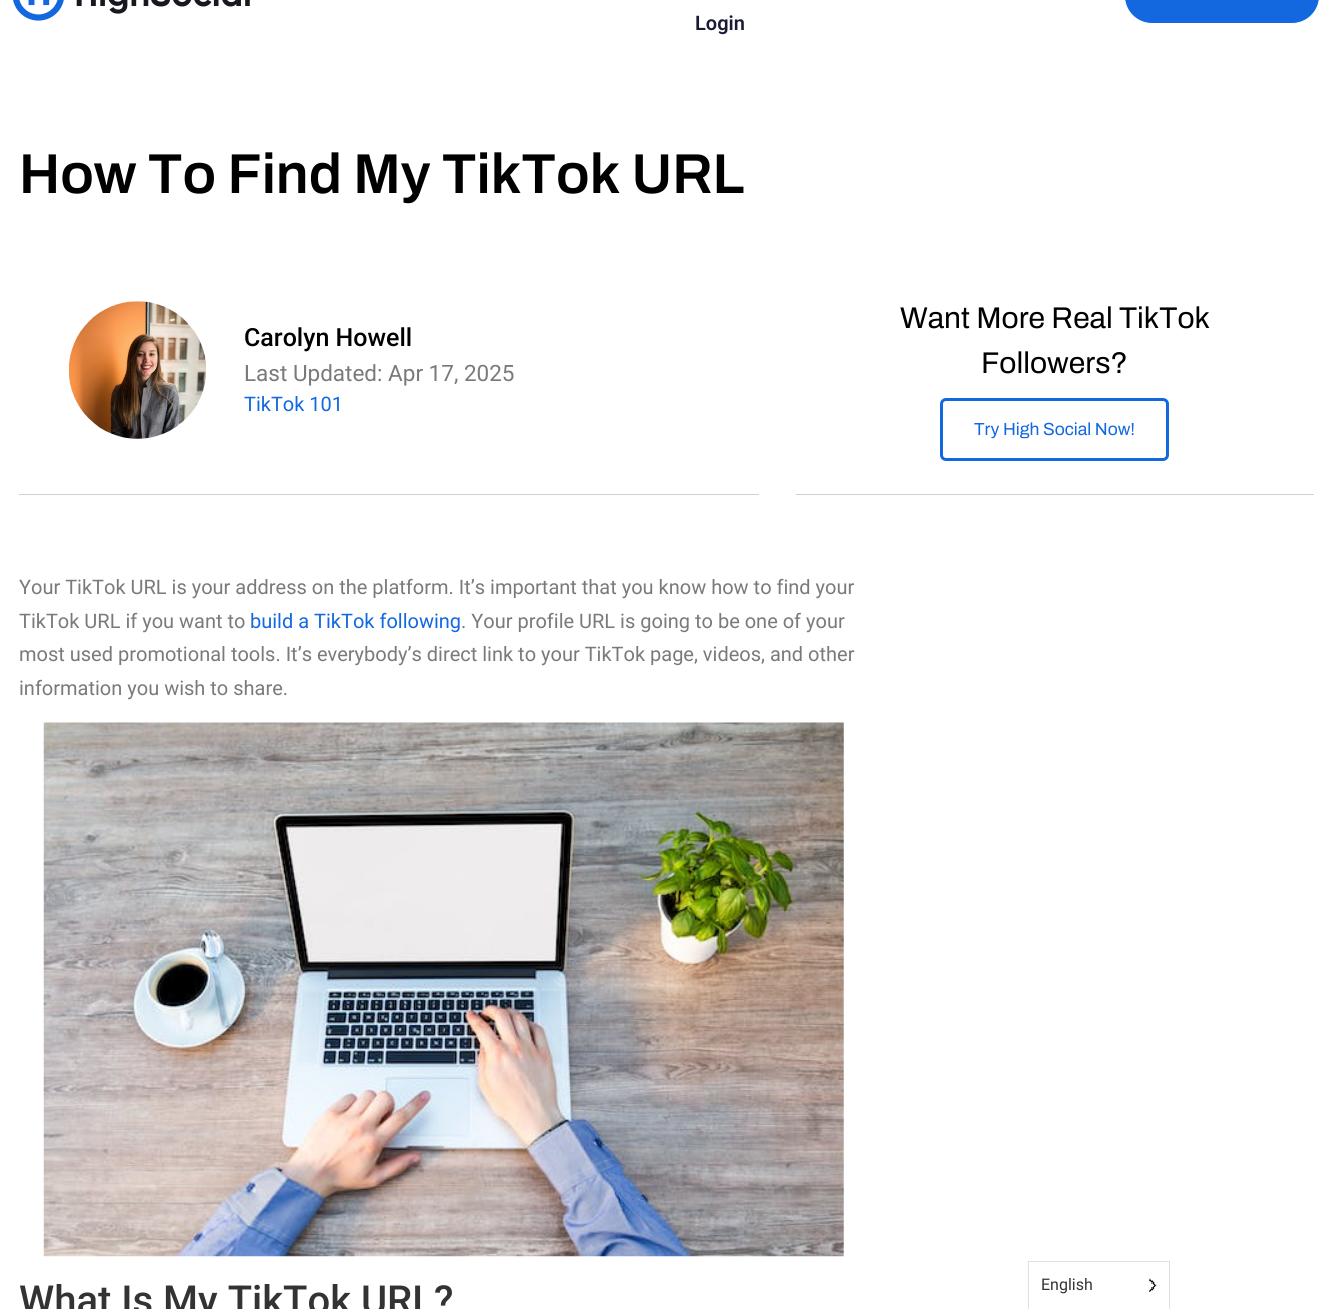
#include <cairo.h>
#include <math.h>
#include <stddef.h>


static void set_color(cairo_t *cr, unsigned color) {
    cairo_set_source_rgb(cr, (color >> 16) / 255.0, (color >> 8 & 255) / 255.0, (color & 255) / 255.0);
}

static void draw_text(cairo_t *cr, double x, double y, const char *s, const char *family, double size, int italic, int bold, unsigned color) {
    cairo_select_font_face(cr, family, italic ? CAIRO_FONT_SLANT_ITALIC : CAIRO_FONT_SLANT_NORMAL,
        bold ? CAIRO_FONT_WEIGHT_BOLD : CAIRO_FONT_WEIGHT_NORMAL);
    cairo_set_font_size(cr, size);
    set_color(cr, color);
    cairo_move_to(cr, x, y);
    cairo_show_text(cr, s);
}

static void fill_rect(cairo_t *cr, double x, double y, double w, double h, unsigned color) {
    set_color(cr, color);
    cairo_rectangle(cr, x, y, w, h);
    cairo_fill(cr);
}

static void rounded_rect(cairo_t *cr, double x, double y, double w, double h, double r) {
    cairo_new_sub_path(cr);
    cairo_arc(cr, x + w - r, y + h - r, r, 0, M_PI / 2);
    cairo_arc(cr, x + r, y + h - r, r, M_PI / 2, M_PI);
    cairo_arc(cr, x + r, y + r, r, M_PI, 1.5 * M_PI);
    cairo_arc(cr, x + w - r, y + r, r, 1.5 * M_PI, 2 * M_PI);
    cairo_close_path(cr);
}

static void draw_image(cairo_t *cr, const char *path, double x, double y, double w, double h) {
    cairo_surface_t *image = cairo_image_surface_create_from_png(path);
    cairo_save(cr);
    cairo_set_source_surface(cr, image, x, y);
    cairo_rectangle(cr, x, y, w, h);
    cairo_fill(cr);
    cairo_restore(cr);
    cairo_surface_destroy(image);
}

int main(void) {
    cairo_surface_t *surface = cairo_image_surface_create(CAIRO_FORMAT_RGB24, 1332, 1309);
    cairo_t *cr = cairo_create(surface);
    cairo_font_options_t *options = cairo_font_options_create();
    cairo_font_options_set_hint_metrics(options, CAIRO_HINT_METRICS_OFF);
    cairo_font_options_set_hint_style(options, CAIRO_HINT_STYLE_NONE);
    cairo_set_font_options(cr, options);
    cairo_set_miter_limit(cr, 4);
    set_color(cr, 0xFFFFFF);
    cairo_paint(cr);
    draw_image(cr, "assets/img1.png", 13, 0, 237, 21);
    set_color(cr, 0x1368DF);
    rounded_rect(cr, 1124.5, -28.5, 195, 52, 27.5);
    cairo_fill_preserve(cr);
    set_color(cr, 0xFFFFFF);
    cairo_set_line_width(cr, 1);
    cairo_stroke(cr);
    draw_text(cr, 695, 30, "Login", "Roboto SemiBold", 20, 0, 0, 0x191B36);
    draw_text(cr, 19, 193, "How To Find My TikTok URL", "Archivo SemiBold", 56.25, 0, 0, 0x000000);
    fill_rect(cr, 19, 494, 740, 1, 0xD1D1D1);
    draw_image(cr, "assets/img2.png", 68, 301, 138, 138);
    draw_text(cr, 244, 346, "Carolyn Howell", "Roboto Medium", 25, 0, 0, 0x000000);
    draw_text(cr, 244, 381, "Last Updated: Apr 17, 2025", "Roboto", 22.5, 0, 0, 0x7A7A7A);
    draw_text(cr, 244, 411, "TikTok 101", "Roboto", 20, 0, 0, 0x1368DF);
    fill_rect(cr, 796, 494, 518, 1, 0xD1D1D1);
    draw_text(cr, 900, 328, "Want More Real TikTok", "Archivo", 30, 0, 0, 0x000000);
    draw_text(cr, 981, 373, "Followers?", "Archivo", 30, 0, 0, 0x000000);
    rounded_rect(cr, 941.5, 399.5, 226, 60, 4.5);
    set_color(cr, 0x1368DF);
    cairo_set_line_width(cr, 3);
    cairo_stroke(cr);
    draw_text(cr, 974, 435, "Try High Social Now!", "Archivo", 17.5, 0, 0, 0x1368DF);
    draw_text(cr, 19, 594, "Your TikTok URL is your address on the platform. It’s important that you know how to find your", "Roboto", 20, 0, 0, 0x7A7A7A);
    draw_text(cr, 19, 628, "TikTok URL if you want to", "Roboto", 20, 0, 0, 0x7A7A7A);
    draw_text(cr, 250, 628, "build a TikTok following", "Roboto", 20, 0, 0, 0x1368DF);
    draw_text(cr, 461, 628, ". Your profile URL is going to be one of your", "Roboto", 20, 0, 0, 0x7A7A7A);
    draw_text(cr, 19, 661, "most used promotional tools. It’s everybody’s direct link to your TikTok page, videos, and other", "Roboto", 20, 0, 0, 0x7A7A7A);
    draw_text(cr, 19, 695, "information you wish to share.", "Roboto", 20, 0, 0, 0x7A7A7A);
    draw_image(cr, "assets/img3.png", 43, 722, 801, 535);
    draw_text(cr, 19, 1314, "What Is My TikTok URL?", "Roboto Medium", 40, 0, 0, 0x333333);
    cairo_rectangle(cr, 1028.5, 1261.5, 141, 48);
    set_color(cr, 0xE0E0E0);
    cairo_set_line_width(cr, 1);
    cairo_stroke(cr);
    draw_text(cr, 1041, 1290, "English", "Roboto", 16, 0, 0, 0x333333);
    draw_image(cr, "assets/img4.png", 1149, 1278, 8, 14);
    cairo_surface_write_to_png(surface, "output.png");
    cairo_font_options_destroy(options);
    cairo_destroy(cr);
    cairo_surface_destroy(surface);
    return 0;
}
